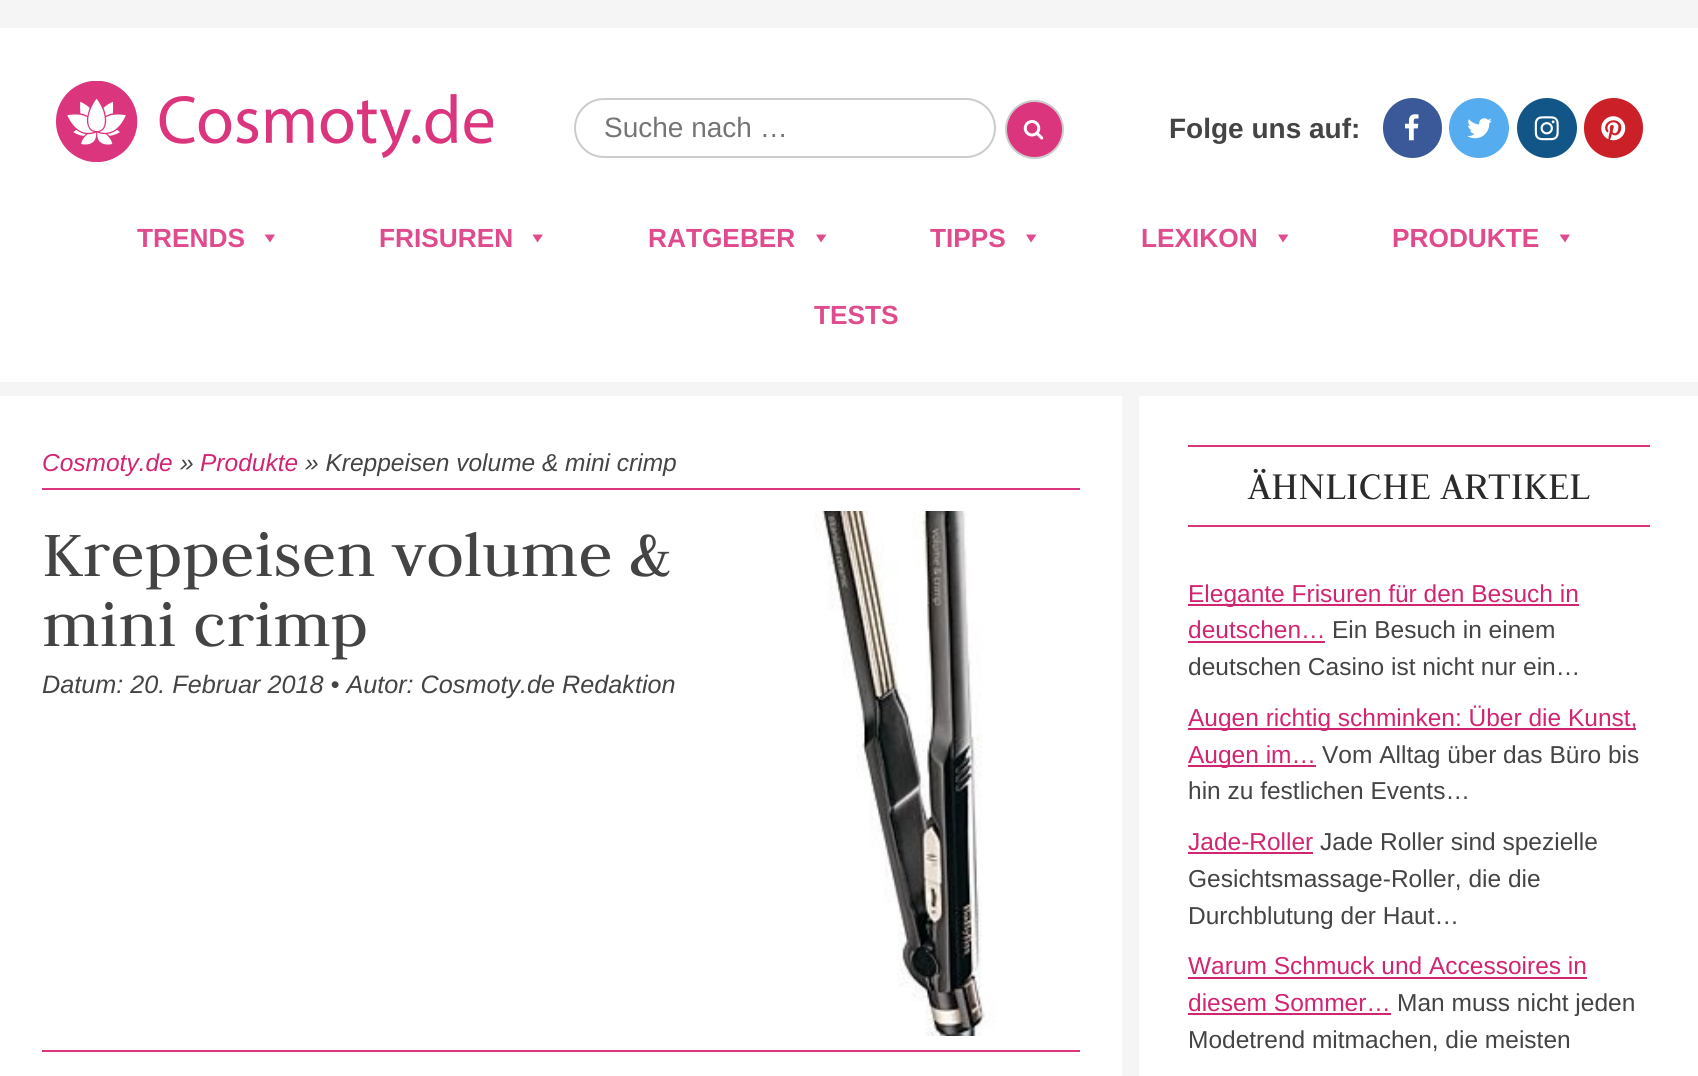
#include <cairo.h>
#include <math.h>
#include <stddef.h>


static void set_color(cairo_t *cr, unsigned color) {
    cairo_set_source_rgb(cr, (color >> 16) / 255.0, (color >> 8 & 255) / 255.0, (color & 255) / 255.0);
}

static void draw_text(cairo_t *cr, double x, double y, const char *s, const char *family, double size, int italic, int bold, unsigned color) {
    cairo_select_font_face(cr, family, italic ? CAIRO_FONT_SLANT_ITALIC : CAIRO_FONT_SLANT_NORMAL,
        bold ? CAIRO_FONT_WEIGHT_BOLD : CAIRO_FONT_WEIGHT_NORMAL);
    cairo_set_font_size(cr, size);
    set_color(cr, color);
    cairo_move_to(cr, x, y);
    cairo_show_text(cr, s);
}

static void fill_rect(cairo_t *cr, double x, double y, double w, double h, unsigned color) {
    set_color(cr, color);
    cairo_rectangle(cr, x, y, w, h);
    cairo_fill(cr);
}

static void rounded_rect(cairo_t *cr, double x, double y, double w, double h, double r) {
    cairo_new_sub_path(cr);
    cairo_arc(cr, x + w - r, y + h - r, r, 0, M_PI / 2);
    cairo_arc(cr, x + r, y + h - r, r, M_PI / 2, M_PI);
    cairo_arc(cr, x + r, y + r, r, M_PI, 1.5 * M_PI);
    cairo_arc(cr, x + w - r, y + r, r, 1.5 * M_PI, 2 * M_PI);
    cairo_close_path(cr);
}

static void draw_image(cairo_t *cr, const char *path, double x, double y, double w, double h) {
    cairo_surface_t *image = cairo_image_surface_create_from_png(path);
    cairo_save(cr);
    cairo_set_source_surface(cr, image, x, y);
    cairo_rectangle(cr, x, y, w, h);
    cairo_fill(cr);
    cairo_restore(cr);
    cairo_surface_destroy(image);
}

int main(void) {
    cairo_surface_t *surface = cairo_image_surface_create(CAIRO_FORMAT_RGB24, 1698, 1076);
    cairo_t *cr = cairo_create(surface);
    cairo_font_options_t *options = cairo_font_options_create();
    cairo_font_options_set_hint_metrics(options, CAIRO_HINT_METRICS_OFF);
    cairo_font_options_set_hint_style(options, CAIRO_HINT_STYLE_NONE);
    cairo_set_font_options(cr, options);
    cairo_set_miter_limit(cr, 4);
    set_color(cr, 0xF5F5F5);
    cairo_paint(cr);
    fill_rect(cr, 0, 28, 1698, 354, 0xFFFFFF);
    draw_image(cr, "assets/img1.png", 56, 81, 437, 81);
    rounded_rect(cr, 575, 99, 420, 58, 29);
    set_color(cr, 0xCCCCCC);
    cairo_stroke(cr);
    draw_text(cr, 604, 137, "Suche nach …", "Liberation Sans", 28, 0, 0, 0x757575);
    set_color(cr, 0xDB357E);
    cairo_new_path(cr);
    cairo_arc(cr, 1034.5, 129.5, 28.5, 0, 2 * M_PI);
    cairo_fill_preserve(cr);
    set_color(cr, 0xCCCCCC);
    cairo_stroke(cr);
    draw_image(cr, "assets/img2.png", 1023, 120, 21, 20);
    draw_text(cr, 1169, 138, "Folge uns auf:", "Liberation Sans", 28, 0, 1, 0x444444);
    set_color(cr, 0x3B5998);
    rounded_rect(cr, 1383, 98, 59, 60, 29.5);
    cairo_fill(cr);
    draw_image(cr, "assets/img3.png", 1405, 114, 14, 27);
    set_color(cr, 0x55ACEE);
    cairo_arc(cr, 1479, 128, 30, 0, 2 * M_PI);
    cairo_fill(cr);
    draw_image(cr, "assets/img4.png", 1467, 118, 25, 21);
    set_color(cr, 0x125688);
    cairo_arc(cr, 1547, 128, 30, 0, 2 * M_PI);
    cairo_fill(cr);
    draw_image(cr, "assets/img5.png", 1534, 116, 25, 25);
    set_color(cr, 0xCB2027);
    rounded_rect(cr, 1584, 98, 59, 60, 29.5);
    cairo_fill(cr);
    draw_image(cr, "assets/img6.png", 1601, 116, 25, 25);
    draw_text(cr, 137, 247, "TRENDS", "Liberation Sans", 26.25, 0, 1, 0xDF4B8C);
    cairo_new_path(cr);
    cairo_move_to(cr, 275, 234.5);
    cairo_line_to(cr, 270, 242.5);
    cairo_line_to(cr, 264.5, 234.5);
    cairo_close_path(cr);
    cairo_fill(cr);
    draw_text(cr, 379, 247, "FRISUREN", "Liberation Sans", 26.25, 0, 1, 0xDF4B8C);
    cairo_new_path(cr);
    cairo_move_to(cr, 543, 234.5);
    cairo_line_to(cr, 537.5, 242.5);
    cairo_line_to(cr, 532.5, 234.5);
    cairo_close_path(cr);
    cairo_fill(cr);
    draw_text(cr, 648, 247, "RATGEBER", "Liberation Sans", 26.25, 0, 1, 0xDF4B8C);
    cairo_new_path(cr);
    cairo_move_to(cr, 826.5, 234.5);
    cairo_line_to(cr, 821, 242.5);
    cairo_line_to(cr, 816, 234.5);
    cairo_close_path(cr);
    cairo_fill(cr);
    draw_text(cr, 930, 247, "TIPPS", "Liberation Sans", 26.25, 0, 1, 0xDF4B8C);
    cairo_new_path(cr);
    cairo_move_to(cr, 1036.5, 234.5);
    cairo_line_to(cr, 1031, 242.5);
    cairo_line_to(cr, 1026, 234.5);
    cairo_close_path(cr);
    cairo_fill(cr);
    draw_text(cr, 1141, 247, "LEXIKON", "Liberation Sans", 26.25, 0, 1, 0xDF4B8C);
    cairo_new_path(cr);
    cairo_move_to(cr, 1288.5, 234.5);
    cairo_line_to(cr, 1283, 242.5);
    cairo_line_to(cr, 1278, 234.5);
    cairo_close_path(cr);
    cairo_fill(cr);
    draw_text(cr, 1392, 247, "PRODUKTE", "Liberation Sans", 26.25, 0, 1, 0xDF4B8C);
    cairo_new_path(cr);
    cairo_move_to(cr, 1570, 234.5);
    cairo_line_to(cr, 1565, 242.5);
    cairo_line_to(cr, 1559.5, 234.5);
    cairo_close_path(cr);
    cairo_fill(cr);
    draw_text(cr, 814, 324, "TESTS", "Liberation Sans", 26.25, 0, 1, 0xDF4B8C);
    fill_rect(cr, 0, 396, 1122, 680, 0xFFFFFF);
    fill_rect(cr, 42, 1050, 1038, 2, 0xDB357E);
    fill_rect(cr, 42, 488, 1038, 2, 0xDB357E);
    draw_text(cr, 42, 471, "Cosmoty.de", "Liberation Sans", 24.5, 1, 0, 0xD12571);
    draw_text(cr, 180, 471, "»", "Liberation Sans", 24.5, 1, 0, 0x444444);
    draw_text(cr, 200, 471, "Produkte", "Liberation Sans", 24.5, 1, 0, 0xD12571);
    draw_text(cr, 305, 471, "» Kreppeisen volume & mini crimp", "Liberation Sans", 24.5, 1, 0, 0x444444);
    draw_text(cr, 42, 576, "Kreppeisen volume &", "Judson", 70, 0, 0, 0x444444);
    draw_text(cr, 42, 646, "mini crimp", "Judson", 70, 0, 0, 0x444444);
    draw_image(cr, "assets/img7.png", 814, 511, 182, 525);
    draw_text(cr, 42, 693, "Datum: 20. Februar 2018 • Autor: Cosmoty.de Redaktion", "Liberation Sans", 25.2, 1, 0, 0x444444);
    fill_rect(cr, 1139, 396, 559, 680, 0xFFFFFF);
    fill_rect(cr, 1188, 445, 462, 2, 0xDB357E);
    fill_rect(cr, 1188, 525, 462, 2, 0xDB357E);
    draw_text(cr, 1248, 499, "ÄHNLICHE ARTIKEL", "Judson", 42, 0, 0, 0x2B2B2B);
    fill_rect(cr, 1188, 604, 391, 2, 0xD12571);
    draw_text(cr, 1188, 602, "Elegante Frisuren für den Besuch in", "Liberation Sans", 24.5, 0, 0, 0xD12571);
    draw_text(cr, 1188, 638, "deutschen…", "Liberation Sans", 24.5, 0, 0, 0xD12571);
    fill_rect(cr, 1188, 641, 137, 2, 0xD12571);
    draw_text(cr, 1332, 638, "Ein Besuch in einem", "Liberation Sans", 24.5, 0, 0, 0x444444);
    draw_text(cr, 1188, 675, "deutschen Casino ist nicht nur ein…", "Liberation Sans", 24.5, 0, 0, 0x444444);
    fill_rect(cr, 1188, 728, 448, 2, 0xD12571);
    draw_text(cr, 1188, 726, "Augen richtig schminken: Über die Kunst,", "Liberation Sans", 24.5, 0, 0, 0xD12571);
    fill_rect(cr, 1188, 765, 128, 2, 0xD12571);
    draw_text(cr, 1188, 763, "Augen im…", "Liberation Sans", 24.5, 0, 0, 0xD12571);
    draw_text(cr, 1322, 763, "Vom Alltag über das Büro bis", "Liberation Sans", 24.5, 0, 0, 0x444444);
    draw_text(cr, 1188, 799, "hin zu festlichen Events…", "Liberation Sans", 24.5, 0, 0, 0x444444);
    draw_text(cr, 1188, 850, "Jade-Roller", "Liberation Sans", 24.5, 0, 0, 0xD12571);
    fill_rect(cr, 1188, 852, 125, 2, 0xD12571);
    draw_text(cr, 1320, 850, "Jade Roller sind spezielle", "Liberation Sans", 24.5, 0, 0, 0x444444);
    draw_text(cr, 1188, 887, "Gesichtsmassage-Roller, die die", "Liberation Sans", 24.5, 0, 0, 0x444444);
    draw_text(cr, 1188, 924, "Durchblutung der Haut…", "Liberation Sans", 24.5, 0, 0, 0x444444);
    draw_text(cr, 1188, 974, "Warum Schmuck und Accessoires in", "Liberation Sans", 24.5, 0, 0, 0xD12571);
    fill_rect(cr, 1188, 977, 399, 2, 0xD12571);
    draw_text(cr, 1188, 1011, "diesem Sommer…", "Liberation Sans", 24.5, 0, 0, 0xD12571);
    fill_rect(cr, 1188, 1013, 203, 2, 0xD12571);
    draw_text(cr, 1397, 1011, "Man muss nicht jeden", "Liberation Sans", 24.5, 0, 0, 0x444444);
    draw_text(cr, 1188, 1048, "Modetrend mitmachen, die meisten", "Liberation Sans", 24.5, 0, 0, 0x444444);
    cairo_surface_write_to_png(surface, "output.png");
    cairo_font_options_destroy(options);
    cairo_destroy(cr);
    cairo_surface_destroy(surface);
    return 0;
}
